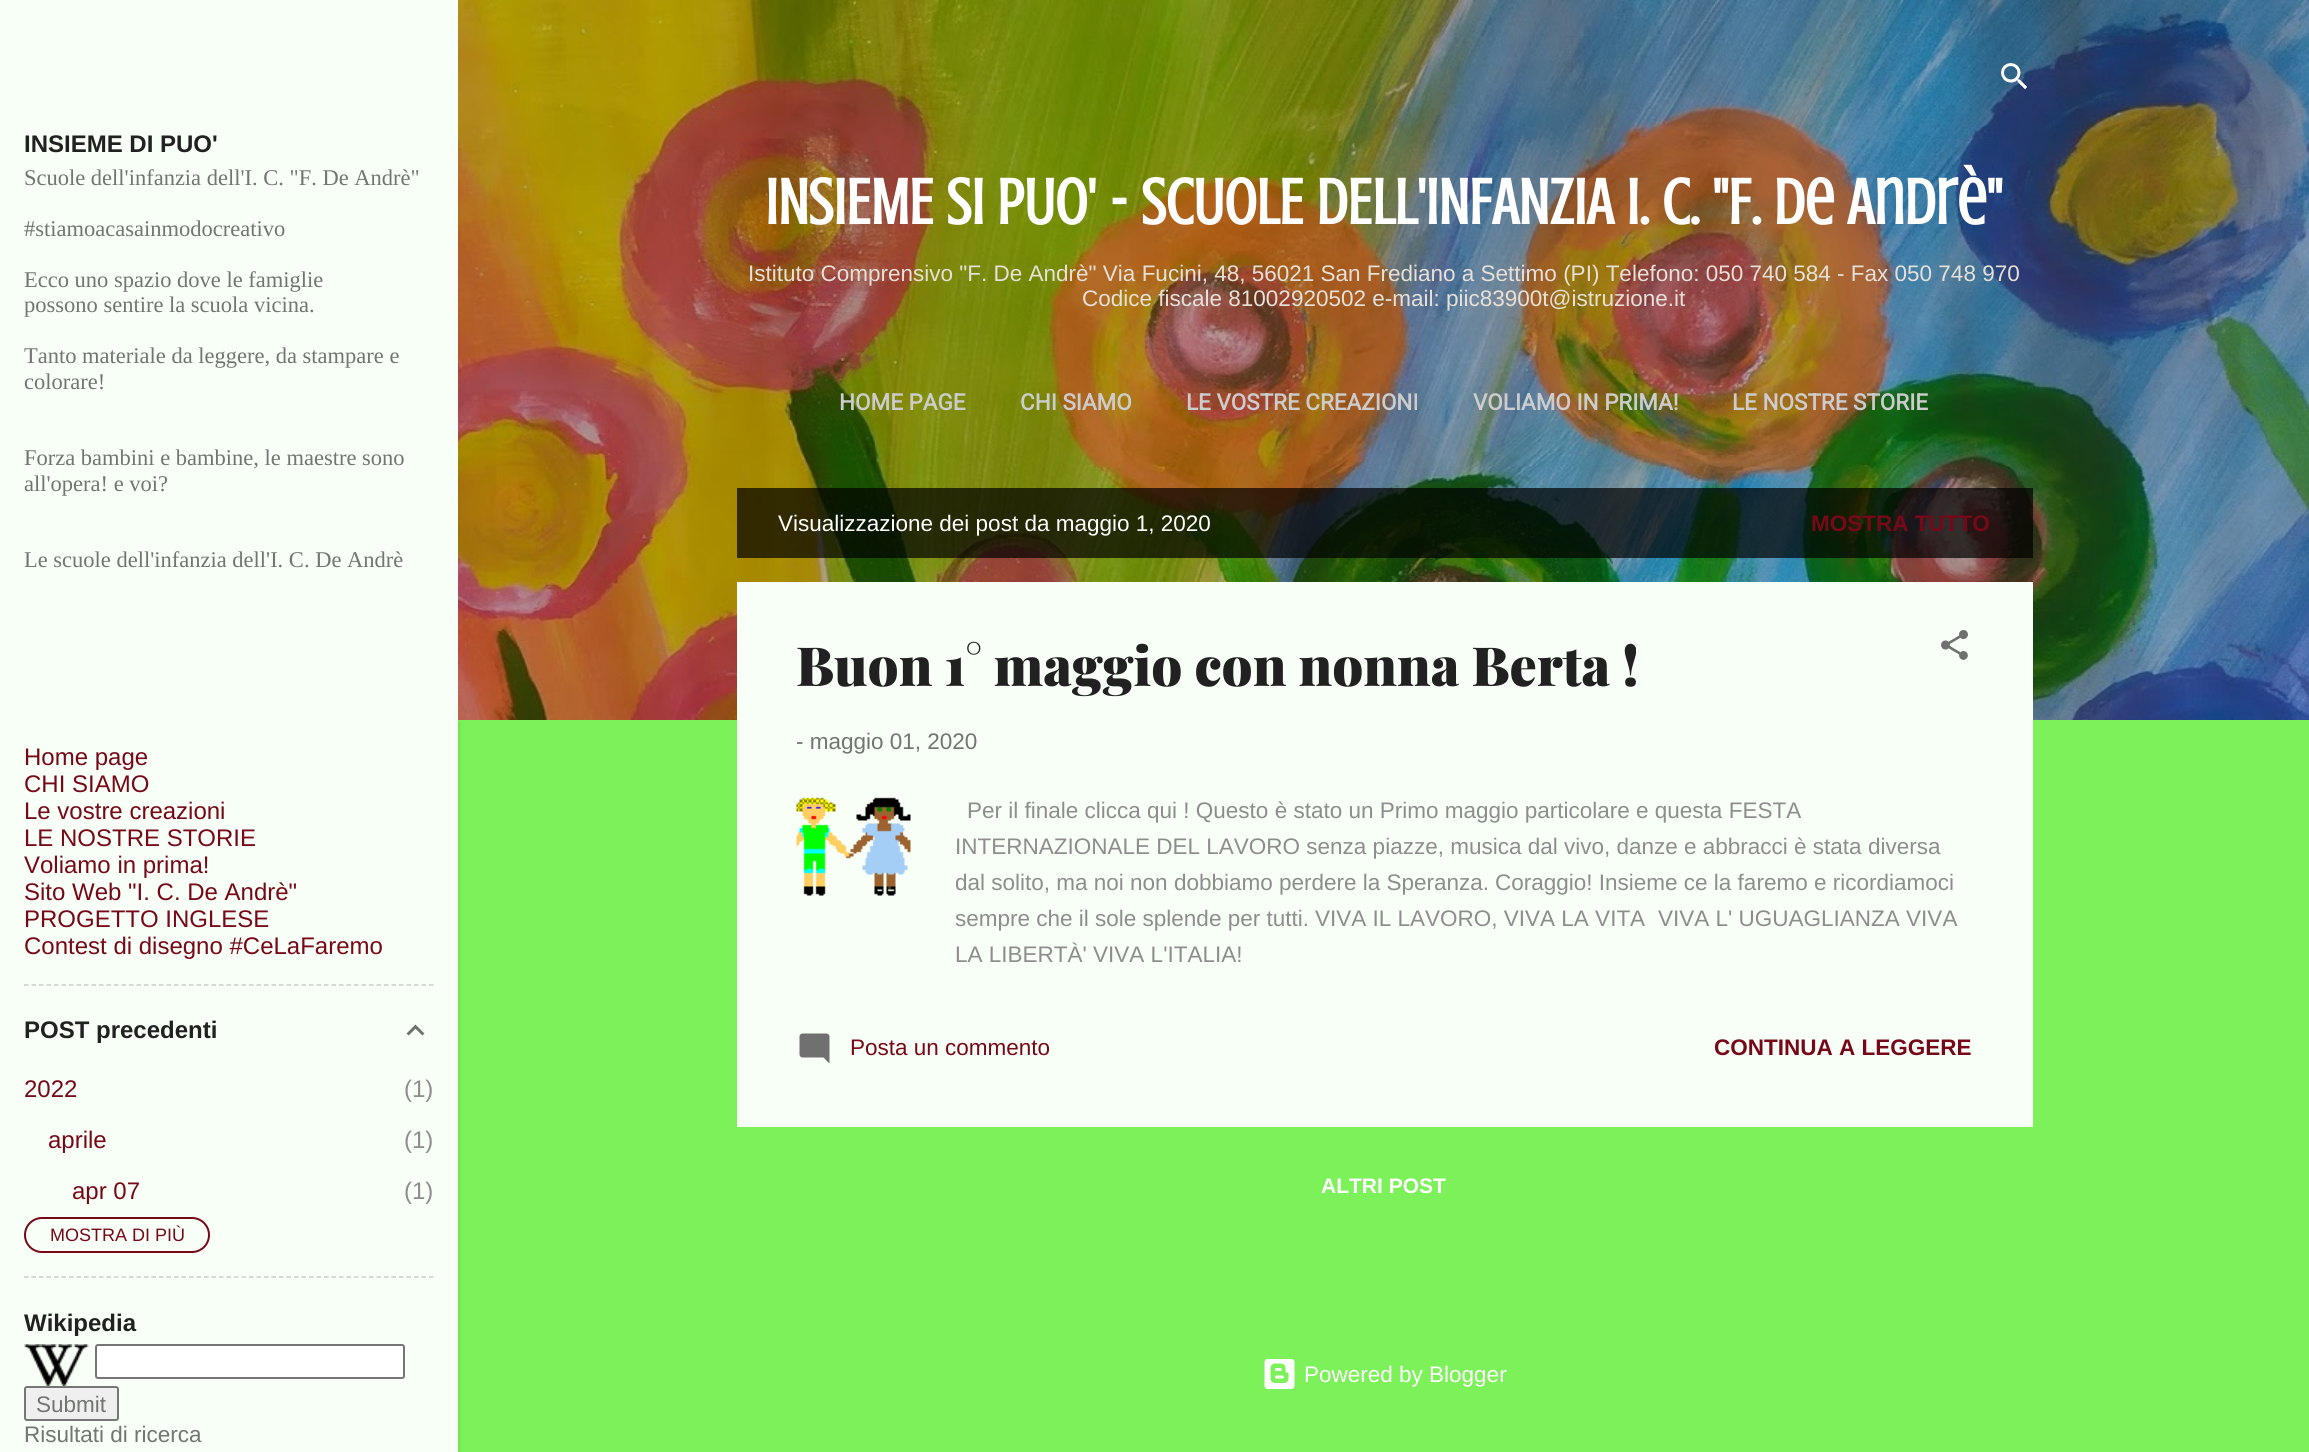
#include <cairo.h>
#include <math.h>
#include <stddef.h>


static void set_color(cairo_t *cr, unsigned color) {
    cairo_set_source_rgb(cr, (color >> 16) / 255.0, (color >> 8 & 255) / 255.0, (color & 255) / 255.0);
}

static void draw_text(cairo_t *cr, double x, double y, const char *s, const char *family, double size, int italic, int bold, unsigned color) {
    cairo_select_font_face(cr, family, italic ? CAIRO_FONT_SLANT_ITALIC : CAIRO_FONT_SLANT_NORMAL,
        bold ? CAIRO_FONT_WEIGHT_BOLD : CAIRO_FONT_WEIGHT_NORMAL);
    cairo_set_font_size(cr, size);
    set_color(cr, color);
    cairo_move_to(cr, x, y);
    cairo_show_text(cr, s);
}

static void fill_rect(cairo_t *cr, double x, double y, double w, double h, unsigned color) {
    set_color(cr, color);
    cairo_rectangle(cr, x, y, w, h);
    cairo_fill(cr);
}

static void rounded_rect(cairo_t *cr, double x, double y, double w, double h, double r) {
    cairo_new_sub_path(cr);
    cairo_arc(cr, x + w - r, y + h - r, r, 0, M_PI / 2);
    cairo_arc(cr, x + r, y + h - r, r, M_PI / 2, M_PI);
    cairo_arc(cr, x + r, y + r, r, M_PI, 1.5 * M_PI);
    cairo_arc(cr, x + w - r, y + r, r, 1.5 * M_PI, 2 * M_PI);
    cairo_close_path(cr);
}

static void draw_shadow(cairo_t *cr, double x, double y, double w, double h, double r, double blur, double alpha) {
    cairo_push_group_with_content(cr, CAIRO_CONTENT_ALPHA);
    cairo_set_operator(cr, CAIRO_OPERATOR_SOURCE);
    for (int i = 15; i >= -15 && fmin(w, h) + blur * i / 3 > 0; i -= 2) {
        double e = blur * i / 6;
        cairo_set_source_rgba(cr, 0, 0, 0, alpha * erfc((i - 1) / 8.5) / 2);
        rounded_rect(cr, x - e, y - e, w + 2 * e, h + 2 * e, fmax(0, fmin(r + e + blur * .6, fmin(w, h) / 2 + e)));
        cairo_fill(cr);
    }
    cairo_pattern_t *soft = cairo_pop_group(cr);
    cairo_mask(cr, soft);
    cairo_pattern_destroy(soft);
}

static void draw_image(cairo_t *cr, const char *path, double x, double y, double w, double h) {
    cairo_surface_t *image = cairo_image_surface_create_from_png(path);
    cairo_save(cr);
    cairo_set_source_surface(cr, image, x, y);
    cairo_rectangle(cr, x, y, w, h);
    cairo_fill(cr);
    cairo_restore(cr);
    cairo_surface_destroy(image);
}

int main(void) {
    cairo_surface_t *surface = cairo_image_surface_create(CAIRO_FORMAT_RGB24, 2309, 1452);
    cairo_t *cr = cairo_create(surface);
    cairo_font_options_t *options = cairo_font_options_create();
    cairo_font_options_set_hint_metrics(options, CAIRO_HINT_METRICS_OFF);
    cairo_font_options_set_hint_style(options, CAIRO_HINT_STYLE_NONE);
    cairo_set_font_options(cr, options);
    cairo_set_miter_limit(cr, 4);
    set_color(cr, 0x7DF159);
    cairo_paint(cr);
    draw_image(cr, "assets/img3.png", 458, 0, 1851, 720);
    set_color(cr, 0x000000);
    draw_shadow(cr, 2, 722, 457, 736, 0, 2, 0.1);
    fill_rect(cr, 0, 0, 458, 1452, 0xF8FFF6);
    draw_text(cr, 24, 152, "INSIEME DI PUO'", "Liberation Sans", 24, 0, 1, 0x212121);
    draw_text(cr, 24, 185, "Scuole dell'infanzia dell'I. C. \"F. De Andrè\"", "Liberation Serif", 22.5, 0, 0, 0x727571);
    draw_text(cr, 24, 236, "#stiamoacasainmodocreativo", "Liberation Serif", 22.5, 0, 0, 0x727571);
    draw_text(cr, 24, 287, "Ecco uno spazio dove le famiglie", "Liberation Serif", 22.5, 0, 0, 0x727571);
    draw_text(cr, 24, 312, "possono sentire la scuola vicina.", "Liberation Serif", 22.5, 0, 0, 0x727571);
    draw_text(cr, 24, 363, "Tanto materiale da leggere, da stampare e", "Liberation Serif", 22.5, 0, 0, 0x727571);
    draw_text(cr, 24, 389, "colorare!", "Liberation Serif", 22.5, 0, 0, 0x727571);
    draw_text(cr, 24, 465, "Forza bambini e bambine, le maestre sono", "Liberation Serif", 22.5, 0, 0, 0x727571);
    draw_text(cr, 24, 491, "all'opera! e voi?", "Liberation Serif", 22.5, 0, 0, 0x727571);
    draw_text(cr, 24, 567, "Le scuole dell'infanzia dell'I. C. De Andrè", "Liberation Serif", 22.5, 0, 0, 0x727571);
    draw_text(cr, 24, 765, "Home page", "Liberation Sans", 24, 0, 0, 0x76081A);
    draw_text(cr, 24, 792, "CHI SIAMO", "Liberation Sans", 24, 0, 0, 0x76081A);
    draw_text(cr, 24, 819, "Le vostre creazioni", "Liberation Sans", 24, 0, 0, 0x76081A);
    draw_text(cr, 24, 846, "LE NOSTRE STORIE", "Liberation Sans", 24, 0, 0, 0x76081A);
    draw_text(cr, 24, 873, "Voliamo in prima!", "Liberation Sans", 24, 0, 0, 0x76081A);
    draw_text(cr, 24, 900, "Sito Web \"I. C. De Andrè\"", "Liberation Sans", 24, 0, 0, 0x76081A);
    draw_text(cr, 24, 927, "PROGETTO INGLESE", "Liberation Sans", 24, 0, 0, 0x76081A);
    draw_text(cr, 24, 954, "Contest di disegno #CeLaFaremo", "Liberation Sans", 24, 0, 0, 0x76081A);
    cairo_new_path(cr);
    cairo_move_to(cr, 24, 985);
    cairo_line_to(cr, 433.5, 985);
    set_color(cr, 0xCCCCCC);
    cairo_set_line_width(cr, 1.5);
    cairo_set_dash(cr, (double[]){4.5, 3}, 2, 0);
    cairo_stroke(cr);
    draw_text(cr, 24, 1038, "POST precedenti", "Liberation Sans", 24, 0, 1, 0x212121);
    draw_image(cr, "assets/img1.png", 406, 1024, 19, 12);
    draw_text(cr, 24, 1097, "2022", "Liberation Sans", 24, 0, 0, 0x76081A);
    draw_text(cr, 404, 1097, "(1)", "Liberation Sans", 24, 0, 0, 0x8D8D8D);
    draw_text(cr, 48, 1148, "aprile", "Liberation Sans", 24, 0, 0, 0x76081A);
    draw_text(cr, 404, 1148, "(1)", "Liberation Sans", 24, 0, 0, 0x8D8D8D);
    draw_text(cr, 72, 1199, "apr 07", "Liberation Sans", 24, 0, 0, 0x76081A);
    draw_text(cr, 404, 1199, "(1)", "Liberation Sans", 24, 0, 0, 0x8D8D8D);
    rounded_rect(cr, 25, 1218, 184, 34, 17);
    set_color(cr, 0x76081A);
    cairo_set_line_width(cr, 2);
    cairo_set_dash(cr, NULL, 0, 0);
    cairo_stroke(cr);
    draw_text(cr, 50, 1241, "MOSTRA DI PIÙ", "Liberation Sans", 18, 0, 0, 0x76081A);
    cairo_new_path(cr);
    cairo_move_to(cr, 24, 1277);
    cairo_line_to(cr, 433.5, 1277);
    set_color(cr, 0xCCCCCC);
    cairo_set_line_width(cr, 1.5);
    cairo_set_dash(cr, (double[]){4.5, 3}, 2, 0);
    cairo_stroke(cr);
    draw_text(cr, 24, 1331, "Wikipedia", "Liberation Sans", 24, 0, 1, 0x212121);
    draw_image(cr, "assets/img2.png", 24, 1344, 65, 42);
    set_color(cr, 0xFFFFFF);
    rounded_rect(cr, 96, 1345, 308, 33, 2);
    cairo_fill_preserve(cr);
    set_color(cr, 0x767676);
    cairo_set_line_width(cr, 2);
    cairo_set_dash(cr, NULL, 0, 0);
    cairo_stroke(cr);
    set_color(cr, 0xEFEFEF);
    rounded_rect(cr, 25, 1387, 93, 33, 2);
    cairo_fill_preserve(cr);
    set_color(cr, 0x767676);
    cairo_stroke(cr);
    draw_text(cr, 36, 1412, "Submit", "Liberation Sans", 22.5, 0, 0, 0x727571);
    draw_text(cr, 24, 1442, "Risultati di ricerca", "Liberation Sans", 22.5, 0, 0, 0x727571);
    draw_image(cr, "assets/img4.png", 2001, 63, 26, 27);
    draw_text(cr, 765, 224, "INSIEME SI PUO' - SCUOLE DELL'INFANZIA I. C. \"F. De Andrè\"", "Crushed", 66, 0, 1, 0xFFFFFF);
    draw_text(cr, 748, 281, "Istituto Comprensivo \"F. De Andrè\" Via Fucini, 48, 56021 San Frediano a Settimo (PI) Telefono: 050 740 584 - Fax 050 748 970", "Liberation Sans", 22.5, 0, 0, 0xE7E0D8);
    draw_text(cr, 1082, 306, "Codice fiscale 81002920502 e-mail: piic83900t@istruzione.it", "Liberation Sans", 22.5, 0, 0, 0xE7E0D8);
    draw_text(cr, 839, 410, "HOME PAGE", "Roboto", 22.5, 0, 1, 0xCCCCCC);
    draw_text(cr, 1020, 410, "CHI SIAMO", "Roboto", 22.5, 0, 1, 0xCCCCCC);
    draw_text(cr, 1186, 410, "LE VOSTRE CREAZIONI", "Roboto", 22.5, 0, 1, 0xCCCCCC);
    draw_text(cr, 1473, 410, "VOLIAMO IN PRIMA!", "Roboto", 22.5, 0, 1, 0xCCCCCC);
    draw_text(cr, 1732, 410, "LE NOSTRE STORIE", "Roboto", 22.5, 0, 1, 0xCCCCCC);
    cairo_set_source_rgba(cr, 0, 0, 0, 0.7);
    cairo_rectangle(cr, 737, 488, 1296, 70);
    cairo_fill(cr);
    draw_text(cr, 778, 531, "Visualizzazione dei post da maggio 1, 2020", "Liberation Sans", 22.5, 0, 0, 0xFFFFFF);
    draw_text(cr, 1811, 531, "MOSTRA TUTTO", "Liberation Sans", 22.5, 0, 1, 0x76081A);
    fill_rect(cr, 737, 582, 1296, 545, 0xF8FFF6);
    draw_text(cr, 796, 686, "Buon 1° maggio con nonna Berta !", "Playfair Display Black", 54, 0, 0, 0x212121);
    draw_image(cr, "assets/img5.png", 1941, 630, 27, 30);
    draw_text(cr, 796, 749, "- maggio 01, 2020", "Liberation Sans", 22.5, 0, 0, 0x727571);
    draw_image(cr, "assets/img6.png", 796, 797, 115, 99);
    draw_text(cr, 967, 818, "Per il finale clicca qui ! Questo è stato un Primo maggio particolare e questa FESTA", "Liberation Sans", 22.5, 0, 0, 0x8D8D8D);
    draw_text(cr, 955, 854, "INTERNAZIONALE DEL LAVORO senza piazze, musica dal vivo, danze e abbracci è stata diversa", "Liberation Sans", 22.5, 0, 0, 0x8D8D8D);
    cairo_save(cr);
    cairo_rectangle(cr, 956, 794, 1017, 180);
    cairo_clip(cr);
    draw_text(cr, 955, 890, "dal solito, ma noi non dobbiamo perdere la Speranza.", "Liberation Sans", 22.5, 0, 0, 0x8D8D8D);
    cairo_restore(cr);
    draw_text(cr, 1495, 890, "Coraggio! Insieme ce la faremo e ricordiamoci", "Liberation Sans", 22.5, 0, 0, 0x8D8D8D);
    cairo_save(cr);
    cairo_rectangle(cr, 956, 794, 1017, 180);
    cairo_clip(cr);
    draw_text(cr, 955, 926, "sempre che il sole splende per tutti.", "Liberation Sans", 22.5, 0, 0, 0x8D8D8D);
    cairo_restore(cr);
    draw_text(cr, 1315, 926, "VIVA IL LAVORO, VIVA LA VITA", "Liberation Sans", 22.5, 0, 0, 0x8D8D8D);
    draw_text(cr, 1658, 926, "VIVA L' UGUAGLIANZA VIVA", "Liberation Sans", 22.5, 0, 0, 0x8D8D8D);
    draw_text(cr, 955, 962, "LA LIBERTÀ' VIVA L'ITALIA!", "Liberation Sans", 22.5, 0, 0, 0x8D8D8D);
    draw_image(cr, "assets/img7.png", 799, 1033, 31, 31);
    draw_text(cr, 850, 1055, "Posta un commento", "Liberation Sans", 22.5, 0, 0, 0x76081A);
    draw_text(cr, 1714, 1055, "CONTINUA A LEGGERE", "Liberation Sans", 22.5, 0, 1, 0x76081A);
    draw_text(cr, 1321, 1193, "ALTRI POST", "Liberation Sans", 21, 0, 1, 0xFFFFFF);
    draw_image(cr, "assets/img8.png", 1264, 1359, 31, 30);
    draw_text(cr, 1304, 1382, "Powered by Blogger", "Liberation Sans", 22.5, 0, 0, 0xFFFFFF);
    cairo_surface_write_to_png(surface, "output.png");
    cairo_font_options_destroy(options);
    cairo_destroy(cr);
    cairo_surface_destroy(surface);
    return 0;
}
